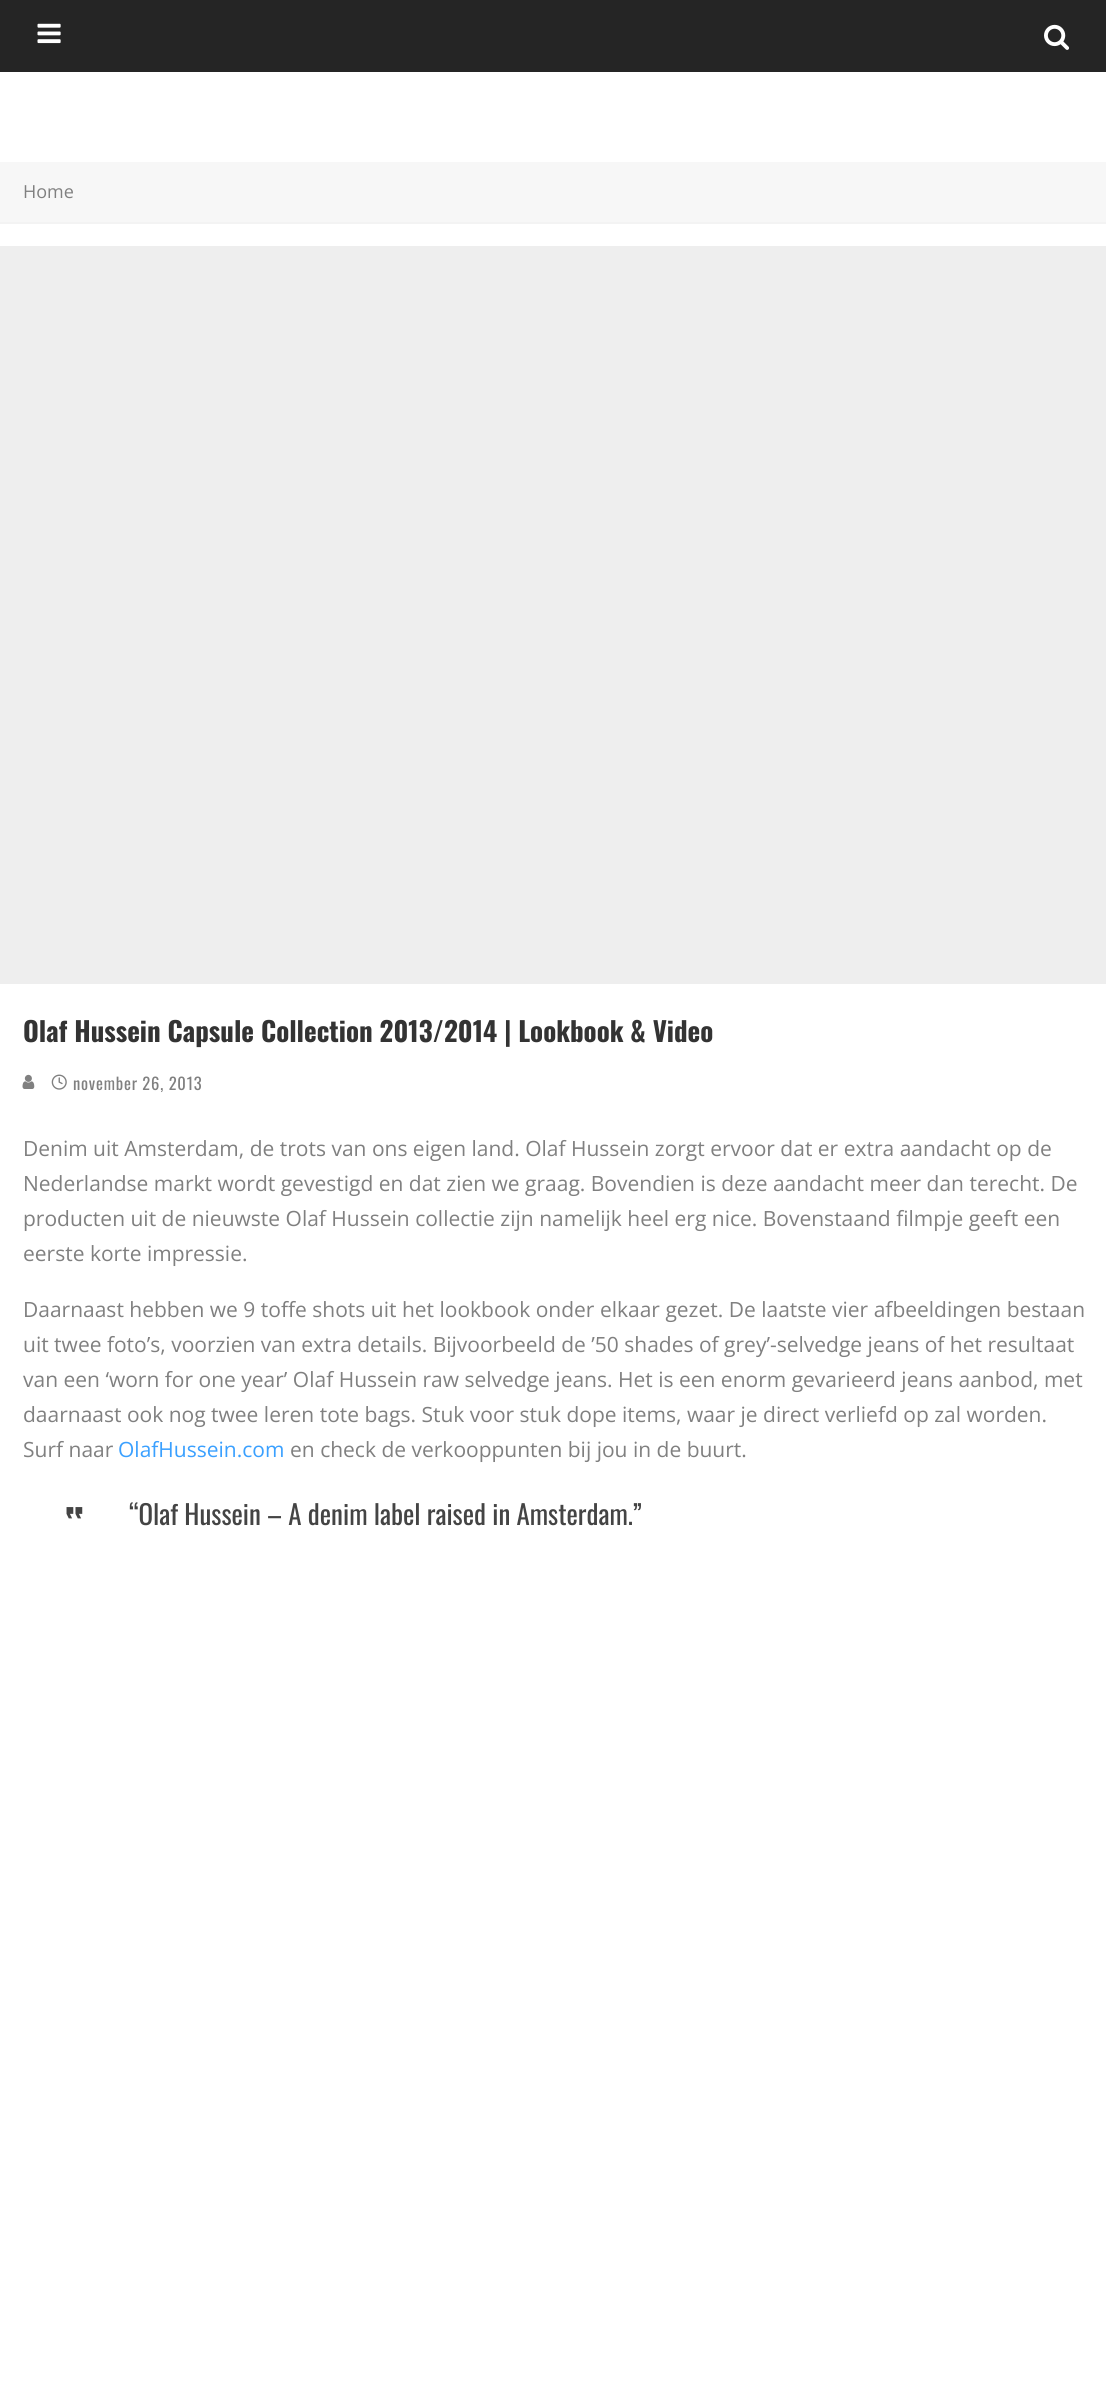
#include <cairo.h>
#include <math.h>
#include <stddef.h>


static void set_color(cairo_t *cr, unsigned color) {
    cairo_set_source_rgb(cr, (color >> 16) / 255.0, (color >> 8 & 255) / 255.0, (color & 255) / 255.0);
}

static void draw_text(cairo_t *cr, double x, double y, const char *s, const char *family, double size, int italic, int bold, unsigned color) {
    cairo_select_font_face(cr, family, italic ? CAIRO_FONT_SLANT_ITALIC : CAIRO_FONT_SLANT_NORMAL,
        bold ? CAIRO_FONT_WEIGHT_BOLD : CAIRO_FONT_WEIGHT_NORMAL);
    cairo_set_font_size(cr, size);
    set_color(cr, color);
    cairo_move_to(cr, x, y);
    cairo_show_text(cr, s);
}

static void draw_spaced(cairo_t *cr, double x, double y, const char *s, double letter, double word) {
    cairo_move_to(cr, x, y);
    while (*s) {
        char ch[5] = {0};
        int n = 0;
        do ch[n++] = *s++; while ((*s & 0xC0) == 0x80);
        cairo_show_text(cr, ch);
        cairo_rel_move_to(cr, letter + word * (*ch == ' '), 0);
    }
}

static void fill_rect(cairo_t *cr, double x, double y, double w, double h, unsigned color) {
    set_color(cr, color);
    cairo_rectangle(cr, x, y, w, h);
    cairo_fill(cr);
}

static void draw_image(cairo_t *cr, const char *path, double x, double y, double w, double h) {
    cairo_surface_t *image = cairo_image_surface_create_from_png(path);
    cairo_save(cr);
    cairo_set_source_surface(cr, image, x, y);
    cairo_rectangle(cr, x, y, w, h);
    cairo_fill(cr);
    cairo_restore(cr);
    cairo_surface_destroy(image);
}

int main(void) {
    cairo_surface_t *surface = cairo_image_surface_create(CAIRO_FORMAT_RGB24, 1106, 2400);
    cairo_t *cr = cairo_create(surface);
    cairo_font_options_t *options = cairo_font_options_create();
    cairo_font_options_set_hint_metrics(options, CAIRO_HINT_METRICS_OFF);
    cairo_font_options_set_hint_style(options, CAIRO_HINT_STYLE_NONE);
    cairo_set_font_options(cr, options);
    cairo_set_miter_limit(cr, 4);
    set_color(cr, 0xFFFFFF);
    cairo_paint(cr);
    fill_rect(cr, 0, 0, 1106, 72, 0x252525);
    draw_image(cr, "assets/img1.png", 37, 23, 24, 21);
    draw_image(cr, "assets/img2.png", 1044, 24, 25, 26);
    fill_rect(cr, 0, 162, 1106, 60, 0xF7F7F7);
    fill_rect(cr, 0, 222, 1106, 2, 0xF3F3F3);
    draw_text(cr, 23, 198, "Home", "Open Sans", 18, 0, 0, 0x808080);
    fill_rect(cr, 0, 246, 1106, 738, 0xEEEEEE);
    draw_text(cr, 23, 1042, "Olaf Hussein Capsule Collection 2013/2014 | Lookbook & Video", "Oswald", 27, 0, 1, 0x333333);
    draw_image(cr, "assets/img3.png", 22, 1074, 13, 15);
    draw_image(cr, "assets/img4.png", 51, 1074, 16, 16);
    cairo_select_font_face(cr, "Oswald", CAIRO_FONT_SLANT_NORMAL, CAIRO_FONT_WEIGHT_NORMAL);
    cairo_set_font_size(cr, 16.5);
    set_color(cr, 0x808080);
    draw_spaced(cr, 73, 1090, "november 26, 2013", 0.8, 0);
    draw_text(cr, 23, 1156, "Denim uit Amsterdam, de trots van ons eigen land. Olaf Hussein zorgt ervoor dat er extra aandacht op de", "Open Sans", 21, 0, 0, 0x808080);
    draw_text(cr, 23, 1191, "Nederlandse markt wordt gevestigd en dat zien we graag. Bovendien is deze aandacht meer dan terecht. De", "Open Sans", 21, 0, 0, 0x808080);
    draw_text(cr, 23, 1226, "producten uit de nieuwste Olaf Hussein collectie zijn namelijk heel erg nice. Bovenstaand filmpje geeft een", "Open Sans", 21, 0, 0, 0x808080);
    draw_text(cr, 23, 1261, "eerste korte impressie.", "Open Sans", 21, 0, 0, 0x808080);
    draw_text(cr, 23, 1317, "Daarnaast hebben we 9 toffe shots uit het lookbook onder elkaar gezet. De laatste vier afbeeldingen bestaan", "Open Sans", 21, 0, 0, 0x808080);
    draw_text(cr, 23, 1352, "uit twee foto’s, voorzien van extra details. Bijvoorbeeld de ’50 shades of grey’-selvedge jeans of het resultaat", "Open Sans", 21, 0, 0, 0x808080);
    draw_text(cr, 23, 1387, "van een ‘worn for one year’ Olaf Hussein raw selvedge jeans. Het is een enorm gevarieerd jeans aanbod, met", "Open Sans", 21, 0, 0, 0x808080);
    draw_text(cr, 23, 1422, "daarnaast ook nog twee leren tote bags. Stuk voor stuk dope items, waar je direct verliefd op zal worden.", "Open Sans", 21, 0, 0, 0x808080);
    draw_text(cr, 23, 1457, "Surf naar", "Open Sans", 21, 0, 0, 0x808080);
    draw_text(cr, 118, 1457, "OlafHussein.com", "Open Sans", 21, 0, 0, 0x3AA0FF);
    draw_text(cr, 290, 1457, "en check de verkooppunten bij jou in de buurt.", "Open Sans", 21, 0, 0, 0x808080);
    draw_image(cr, "assets/img5.png", 66, 1507, 17, 12);
    draw_text(cr, 129, 1525, "“Olaf Hussein – A denim label raised in Amsterdam.”", "Oswald", 27, 0, 0, 0x444444);
    cairo_surface_write_to_png(surface, "output.png");
    cairo_font_options_destroy(options);
    cairo_destroy(cr);
    cairo_surface_destroy(surface);
    return 0;
}
